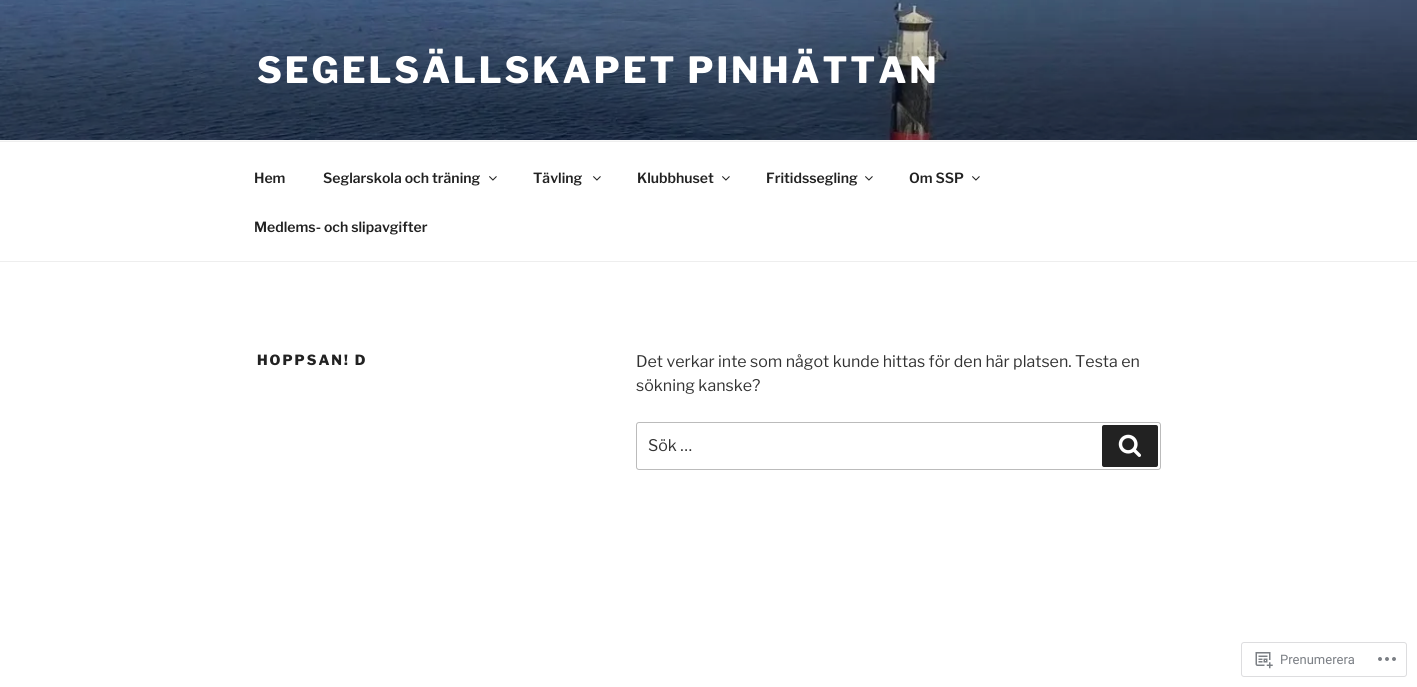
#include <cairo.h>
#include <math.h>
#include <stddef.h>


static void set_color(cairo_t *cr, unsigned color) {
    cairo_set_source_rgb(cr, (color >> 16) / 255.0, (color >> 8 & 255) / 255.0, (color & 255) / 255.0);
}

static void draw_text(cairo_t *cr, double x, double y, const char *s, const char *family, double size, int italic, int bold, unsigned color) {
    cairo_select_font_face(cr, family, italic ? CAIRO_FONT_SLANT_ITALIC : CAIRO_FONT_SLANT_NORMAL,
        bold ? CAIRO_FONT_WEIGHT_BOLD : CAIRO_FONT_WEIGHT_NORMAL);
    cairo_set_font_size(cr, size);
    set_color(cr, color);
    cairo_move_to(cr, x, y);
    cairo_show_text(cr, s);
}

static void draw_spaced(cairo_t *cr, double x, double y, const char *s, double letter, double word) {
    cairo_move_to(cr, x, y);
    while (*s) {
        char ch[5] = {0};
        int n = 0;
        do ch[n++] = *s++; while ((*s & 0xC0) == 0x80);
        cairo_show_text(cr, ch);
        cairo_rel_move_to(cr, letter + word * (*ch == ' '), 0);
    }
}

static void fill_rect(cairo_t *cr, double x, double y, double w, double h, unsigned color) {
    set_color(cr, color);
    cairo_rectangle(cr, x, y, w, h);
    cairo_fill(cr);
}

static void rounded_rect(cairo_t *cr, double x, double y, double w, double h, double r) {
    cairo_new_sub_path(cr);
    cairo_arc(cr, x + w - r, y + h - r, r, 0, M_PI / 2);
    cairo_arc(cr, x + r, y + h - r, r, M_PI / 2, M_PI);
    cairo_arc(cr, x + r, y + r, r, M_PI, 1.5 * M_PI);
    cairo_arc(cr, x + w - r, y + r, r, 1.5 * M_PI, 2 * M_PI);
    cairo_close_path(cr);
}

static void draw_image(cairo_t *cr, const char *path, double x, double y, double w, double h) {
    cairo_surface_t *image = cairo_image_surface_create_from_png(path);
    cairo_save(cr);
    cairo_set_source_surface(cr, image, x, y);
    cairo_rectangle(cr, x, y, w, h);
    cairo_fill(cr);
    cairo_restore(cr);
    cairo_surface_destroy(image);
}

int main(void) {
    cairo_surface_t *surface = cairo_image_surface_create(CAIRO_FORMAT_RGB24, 1417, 687);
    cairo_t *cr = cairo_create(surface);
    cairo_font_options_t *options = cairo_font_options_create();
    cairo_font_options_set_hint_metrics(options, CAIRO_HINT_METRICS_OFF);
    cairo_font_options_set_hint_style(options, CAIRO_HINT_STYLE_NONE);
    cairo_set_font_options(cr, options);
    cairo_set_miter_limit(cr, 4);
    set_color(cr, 0xFFFFFF);
    cairo_paint(cr);
    fill_rect(cr, 0, 140, 1417, 1, 0xFAFAFA);
    draw_image(cr, "assets/img1.png", 0, 0, 1417, 140);
    cairo_select_font_face(cr, "Libre Franklin Thin", CAIRO_FONT_SLANT_NORMAL, CAIRO_FONT_WEIGHT_NORMAL);
    cairo_set_font_size(cr, 36);
    set_color(cr, 0xFFFFFF);
    draw_spaced(cr, 257, 83, "SEGELSÄLLSKAPET PINHÄTTAN", 2.9, 0);
    fill_rect(cr, 0, 141, 1417, 1, 0xEEEEEE);
    fill_rect(cr, 0, 261, 1417, 1, 0xEEEEEE);
    draw_text(cr, 254, 183, "Hem", "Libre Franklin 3 Thin", 14, 0, 0, 0x222222);
    draw_text(cr, 323, 183, "Seglarskola och träning", "Libre Franklin 3 Thin", 14, 0, 0, 0x222222);
    draw_image(cr, "assets/img2.png", 489, 176, 8, 5);
    draw_text(cr, 533, 183, "Tävling", "Libre Franklin 3 Thin", 14, 0, 0, 0x222222);
    draw_image(cr, "assets/img2.png", 593, 176, 8, 5);
    draw_text(cr, 637, 183, "Klubbhuset", "Libre Franklin 3 Thin", 14, 0, 0, 0x222222);
    draw_image(cr, "assets/img2.png", 722, 176, 8, 5);
    draw_text(cr, 766, 183, "Fritidssegling", "Libre Franklin 3 Thin", 14, 0, 0, 0x222222);
    draw_image(cr, "assets/img2.png", 865, 176, 8, 5);
    draw_text(cr, 909, 183, "Om SSP", "Libre Franklin 3 Thin", 14, 0, 0, 0x222222);
    draw_image(cr, "assets/img2.png", 972, 176, 8, 5);
    draw_text(cr, 254, 232, "Medlems- och slipavgifter", "Libre Franklin 3 Thin", 14, 0, 0, 0x222222);
    cairo_select_font_face(cr, "Libre Franklin Thin", CAIRO_FONT_SLANT_NORMAL, CAIRO_FONT_WEIGHT_NORMAL);
    draw_spaced(cr, 257, 365, "HOPPSAN! D", 2, 0);
    draw_text(cr, 636, 367, "Det verkar inte som något kunde hittas för den här platsen. Testa en", "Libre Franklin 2 Thin", 16, 0, 0, 0x333333);
    draw_text(cr, 636, 391, "sökning kanske?", "Libre Franklin 2 Thin", 16, 0, 0, 0x333333);
    rounded_rect(cr, 636.5, 422.5, 524, 47, 2.5);
    set_color(cr, 0xBBBBBB);
    cairo_set_line_width(cr, 1);
    cairo_stroke(cr);
    draw_text(cr, 648, 451, "Sök …", "Libre Franklin 2 Thin", 16, 0, 0, 0x333333);
    set_color(cr, 0x222222);
    rounded_rect(cr, 1102, 425, 56, 42, 2);
    cairo_fill(cr);
    draw_image(cr, "assets/img3.png", 1118, 434, 23, 23);
    rounded_rect(cr, 1241.5, 642.5, 165, 34, 2.5);
    set_color(cr, 0xDDDDDF);
    cairo_stroke(cr);
    draw_image(cr, "assets/img4.png", 1255, 652, 18, 17);
    draw_text(cr, 1280, 664, "Prenumerera", "Roboto", 13, 0, 0, 0x7B7F85);
    draw_image(cr, "assets/img5.png", 1378, 657, 18, 4);
    cairo_surface_write_to_png(surface, "output.png");
    cairo_font_options_destroy(options);
    cairo_destroy(cr);
    cairo_surface_destroy(surface);
    return 0;
}
